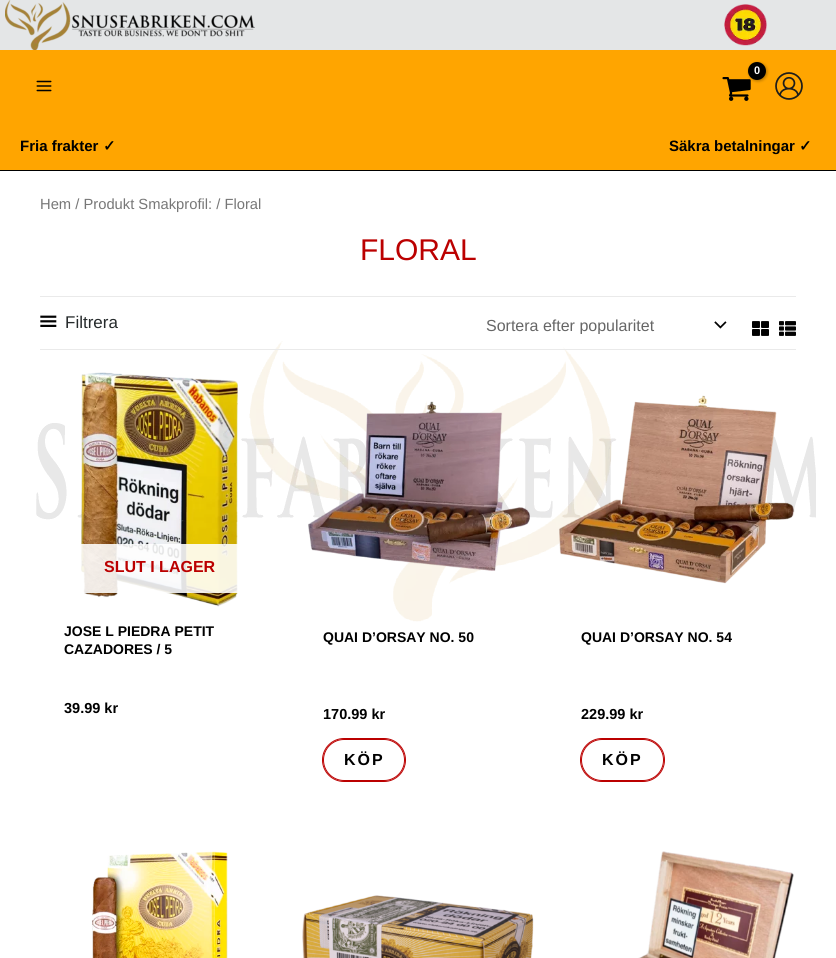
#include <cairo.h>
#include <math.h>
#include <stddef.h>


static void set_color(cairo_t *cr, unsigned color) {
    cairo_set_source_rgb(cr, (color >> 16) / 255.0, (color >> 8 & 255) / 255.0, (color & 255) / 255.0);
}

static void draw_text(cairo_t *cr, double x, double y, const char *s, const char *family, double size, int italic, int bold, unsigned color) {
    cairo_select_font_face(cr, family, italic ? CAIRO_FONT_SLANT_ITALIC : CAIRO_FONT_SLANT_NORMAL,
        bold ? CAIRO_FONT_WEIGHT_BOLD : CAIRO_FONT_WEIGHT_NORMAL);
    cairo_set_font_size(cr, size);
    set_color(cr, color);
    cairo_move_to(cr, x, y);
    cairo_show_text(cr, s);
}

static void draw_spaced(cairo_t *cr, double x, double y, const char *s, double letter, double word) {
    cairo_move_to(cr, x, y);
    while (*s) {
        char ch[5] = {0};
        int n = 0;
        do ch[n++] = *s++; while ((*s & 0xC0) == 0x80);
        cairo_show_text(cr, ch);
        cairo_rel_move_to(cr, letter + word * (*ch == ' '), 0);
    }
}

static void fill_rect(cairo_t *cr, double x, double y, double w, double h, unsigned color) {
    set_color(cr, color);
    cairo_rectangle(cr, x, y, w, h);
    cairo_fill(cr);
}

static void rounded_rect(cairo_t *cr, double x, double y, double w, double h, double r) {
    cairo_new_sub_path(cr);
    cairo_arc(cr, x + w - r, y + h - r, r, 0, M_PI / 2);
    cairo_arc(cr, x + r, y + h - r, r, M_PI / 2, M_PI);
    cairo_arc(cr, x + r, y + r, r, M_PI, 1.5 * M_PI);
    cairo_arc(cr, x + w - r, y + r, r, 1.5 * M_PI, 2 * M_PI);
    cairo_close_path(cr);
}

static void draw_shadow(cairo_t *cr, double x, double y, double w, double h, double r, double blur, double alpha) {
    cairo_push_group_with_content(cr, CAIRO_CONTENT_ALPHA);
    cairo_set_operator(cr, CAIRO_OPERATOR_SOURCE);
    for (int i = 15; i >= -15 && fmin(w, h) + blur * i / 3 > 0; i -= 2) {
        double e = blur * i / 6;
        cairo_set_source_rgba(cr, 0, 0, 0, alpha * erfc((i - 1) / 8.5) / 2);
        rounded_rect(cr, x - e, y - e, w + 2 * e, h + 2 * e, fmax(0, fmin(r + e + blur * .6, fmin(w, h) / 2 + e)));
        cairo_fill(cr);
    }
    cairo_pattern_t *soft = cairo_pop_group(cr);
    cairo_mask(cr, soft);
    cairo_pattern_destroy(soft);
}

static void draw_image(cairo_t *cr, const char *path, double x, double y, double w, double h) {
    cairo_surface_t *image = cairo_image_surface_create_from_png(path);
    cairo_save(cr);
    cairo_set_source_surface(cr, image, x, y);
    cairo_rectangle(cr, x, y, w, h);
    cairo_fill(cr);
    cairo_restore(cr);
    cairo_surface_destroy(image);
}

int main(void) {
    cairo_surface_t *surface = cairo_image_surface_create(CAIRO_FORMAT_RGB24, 836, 958);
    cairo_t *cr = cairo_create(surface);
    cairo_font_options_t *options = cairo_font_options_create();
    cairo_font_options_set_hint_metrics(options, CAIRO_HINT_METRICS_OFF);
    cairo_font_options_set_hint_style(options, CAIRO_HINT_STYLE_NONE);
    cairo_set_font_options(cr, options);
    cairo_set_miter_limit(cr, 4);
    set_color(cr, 0xFFFFFF);
    cairo_paint(cr);
    fill_rect(cr, 0, 0, 836, 50, 0xE4E6E7);
    draw_image(cr, "assets/img1.png", 5, 0, 250, 50);
    draw_image(cr, "assets/img2.png", 724, 4, 43, 42);
    fill_rect(cr, 0, 50, 836, 120, 0xFFA500);
    draw_image(cr, "assets/img3.png", 722, 77, 29, 24);
    set_color(cr, 0x000000);
    draw_shadow(cr, 749, 63, 18, 18, 9, 1.5, 0.3);
    set_color(cr, 0x000000);
    cairo_arc(cr, 757, 71, 9, 0, 2 * M_PI);
    cairo_fill(cr);
    draw_text(cr, 754, 74, "0", "Liberation Sans", 11, 0, 1, 0xFFFFFF);
    draw_image(cr, "assets/img4.png", 775, 72, 28, 28);
    draw_image(cr, "assets/img5.png", 36, 80, 16, 12);
    fill_rect(cr, 0, 170, 836, 1, 0x000000);
    draw_text(cr, 20, 151, "Fria frakter", "Liberation Sans", 15, 0, 1, 0x000000);
    draw_text(cr, 103, 151, "✓", "DejaVu Sans", 15, 0, 1, 0x000000);
    draw_text(cr, 669, 151, "Säkra betalningar", "Liberation Sans", 15, 0, 1, 0x000000);
    draw_text(cr, 799, 151, "✓", "DejaVu Sans", 15, 0, 1, 0x000000);
    draw_image(cr, "assets/img6.png", 36, 341, 780, 281);
    draw_text(cr, 40, 209, "Hem / Produkt Smakprofil: / Floral", "Liberation Sans", 14.75, 0, 0, 0x777777);
    draw_text(cr, 360, 260, "FLORAL", "Liberation Sans", 30, 0, 0, 0xBB0000);
    fill_rect(cr, 40, 296, 756, 1, 0xEAEAEA);
    fill_rect(cr, 40, 349, 756, 1, 0xEAEAEA);
    draw_image(cr, "assets/img7.png", 40, 315, 17, 12);
    draw_text(cr, 65, 328, "Filtrera", "Liberation Sans", 17, 0, 0, 0x262B2C);
    draw_image(cr, "assets/img8.png", 714, 321, 13, 8);
    cairo_save(cr);
    cairo_rectangle(cr, 486, 317, 236, 17);
    cairo_clip(cr);
    draw_text(cr, 486, 331, "Sortera efter popularitet", "Liberation Sans", 16, 0, 0, 0x666666);
    cairo_restore(cr);
    draw_image(cr, "assets/img9.png", 752, 321, 17, 15);
    draw_image(cr, "assets/img10.png", 779, 321, 17, 15);
    draw_image(cr, "assets/img11.png", 80, 372, 158, 235);
    cairo_set_source_rgba(cr, 1, 1, 1, 0.88);
    cairo_rectangle(cr, 80, 544, 158, 49);
    cairo_fill(cr);
    draw_text(cr, 104, 572, "SLUT I LAGER", "Liberation Sans", 16, 0, 1, 0xBB0000);
    draw_text(cr, 64, 636, "JOSE L PIEDRA PETIT", "Liberation Sans", 14, 0, 1, 0x000000);
    draw_text(cr, 64, 654, "CAZADORES / 5", "Liberation Sans", 14, 0, 1, 0x000000);
    draw_text(cr, 64, 713, "39.99 kr", "Liberation Sans", 14.5, 0, 1, 0x000000);
    draw_image(cr, "assets/img12.png", 308, 401, 222, 170);
    draw_text(cr, 323, 642, "QUAI D’ORSAY NO. 50", "Liberation Sans", 14, 0, 1, 0x000000);
    draw_text(cr, 323, 719, "170.99 kr", "Liberation Sans", 14.5, 0, 1, 0x000000);
    rounded_rect(cr, 323.5, 739.5, 81, 41, 20.5);
    set_color(cr, 0xBB0000);
    cairo_set_line_width(cr, 1);
    cairo_stroke(cr);
    rounded_rect(cr, 322.5, 738.5, 83, 43, 21.5);
    cairo_stroke(cr);
    cairo_set_font_size(cr, 16);
    set_color(cr, 0x000000);
    draw_spaced(cr, 344, 765, "KÖP", 2, 0);
    draw_image(cr, "assets/img13.png", 559, 395, 236, 189);
    draw_text(cr, 581, 642, "QUAI D’ORSAY NO. 54", "Liberation Sans", 14, 0, 1, 0x000000);
    draw_text(cr, 581, 719, "229.99 kr", "Liberation Sans", 14.5, 0, 1, 0x000000);
    rounded_rect(cr, 581.5, 739.5, 82, 41, 20.5);
    set_color(cr, 0xBB0000);
    cairo_stroke(cr);
    rounded_rect(cr, 580.5, 738.5, 84, 43, 21.5);
    cairo_stroke(cr);
    cairo_set_font_size(cr, 16);
    set_color(cr, 0x000000);
    draw_spaced(cr, 602, 765, "KÖP", 2, 0);
    draw_image(cr, "assets/img14.png", 92, 851, 136, 107);
    draw_image(cr, "assets/img15.png", 302, 895, 232, 63);
    draw_image(cr, "assets/img16.png", 638, 851, 156, 107);
    cairo_surface_write_to_png(surface, "output.png");
    cairo_font_options_destroy(options);
    cairo_destroy(cr);
    cairo_surface_destroy(surface);
    return 0;
}
